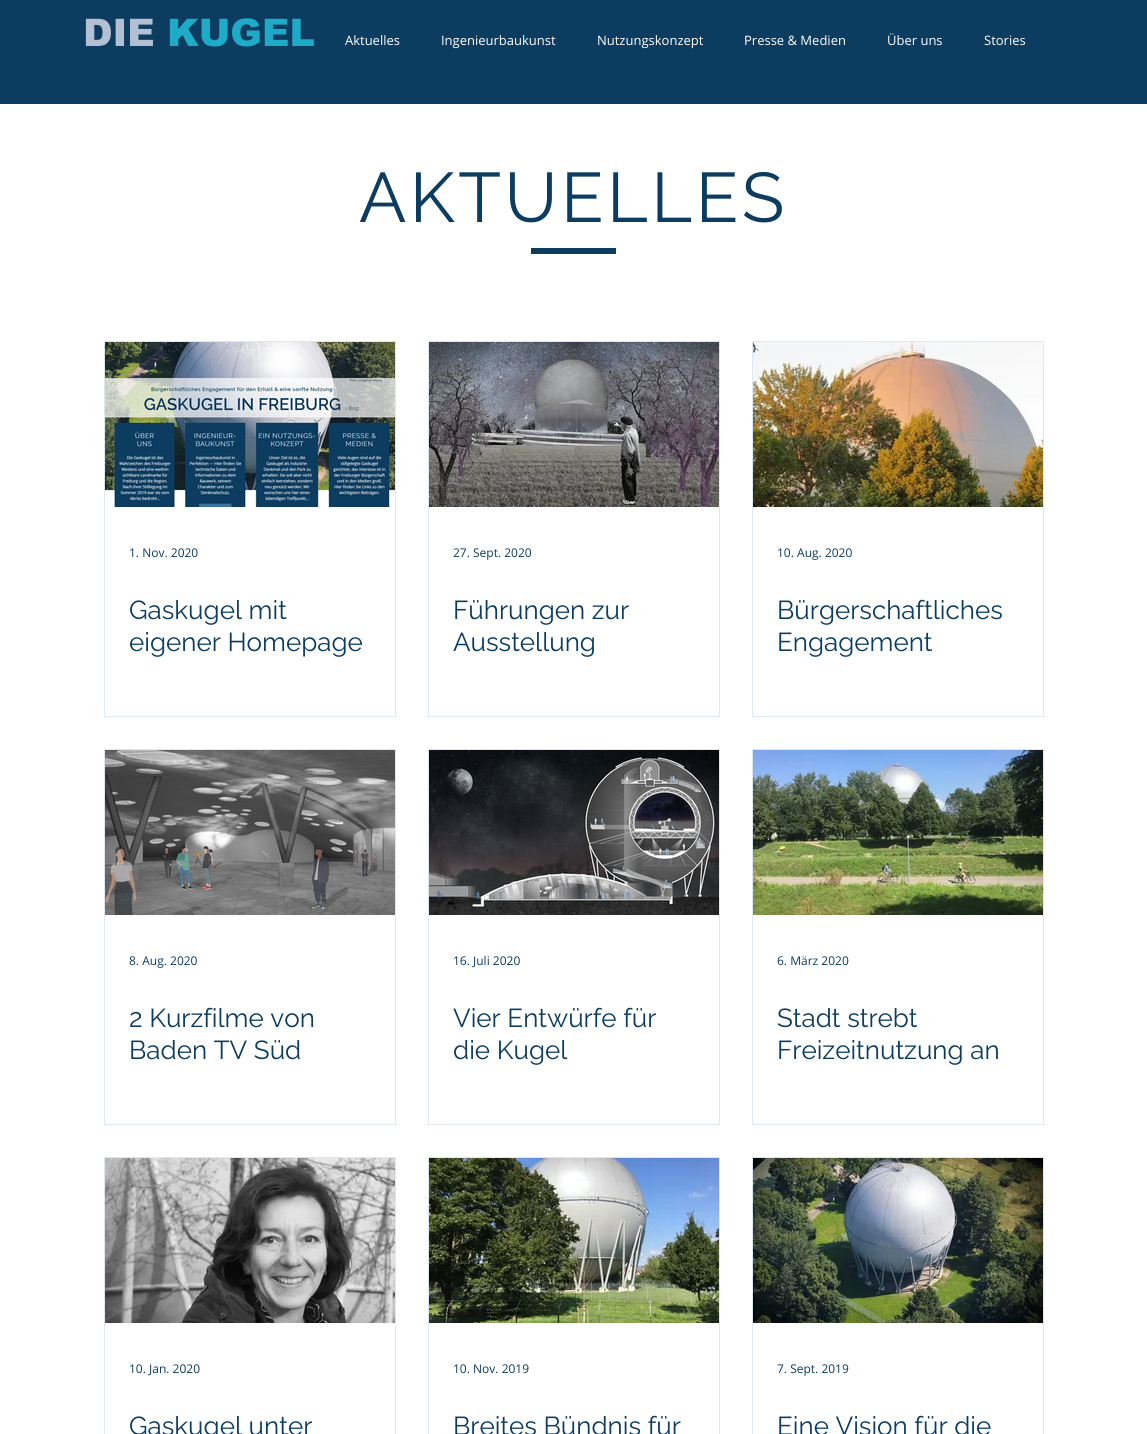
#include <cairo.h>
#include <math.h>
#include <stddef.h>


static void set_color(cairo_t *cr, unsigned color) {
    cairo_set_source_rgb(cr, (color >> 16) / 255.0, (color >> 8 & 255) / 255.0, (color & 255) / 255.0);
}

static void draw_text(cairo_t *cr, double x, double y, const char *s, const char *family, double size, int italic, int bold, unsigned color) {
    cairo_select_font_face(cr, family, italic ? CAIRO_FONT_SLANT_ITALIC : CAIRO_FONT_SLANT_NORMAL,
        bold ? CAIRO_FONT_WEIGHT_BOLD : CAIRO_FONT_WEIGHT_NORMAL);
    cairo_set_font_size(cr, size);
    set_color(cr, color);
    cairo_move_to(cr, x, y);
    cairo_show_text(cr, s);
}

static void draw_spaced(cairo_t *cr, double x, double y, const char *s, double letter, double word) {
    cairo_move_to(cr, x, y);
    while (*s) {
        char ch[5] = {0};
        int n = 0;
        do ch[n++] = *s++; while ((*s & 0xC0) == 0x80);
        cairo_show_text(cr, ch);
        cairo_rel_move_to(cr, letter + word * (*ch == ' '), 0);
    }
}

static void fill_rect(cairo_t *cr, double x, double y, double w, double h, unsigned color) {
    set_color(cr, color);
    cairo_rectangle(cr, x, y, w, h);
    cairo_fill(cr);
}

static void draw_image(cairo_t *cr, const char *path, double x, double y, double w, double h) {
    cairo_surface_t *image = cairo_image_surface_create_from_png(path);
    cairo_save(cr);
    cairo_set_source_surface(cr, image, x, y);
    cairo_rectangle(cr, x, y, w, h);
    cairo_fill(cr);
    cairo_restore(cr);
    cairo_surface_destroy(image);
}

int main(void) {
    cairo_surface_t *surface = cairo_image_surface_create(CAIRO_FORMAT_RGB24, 1147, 1434);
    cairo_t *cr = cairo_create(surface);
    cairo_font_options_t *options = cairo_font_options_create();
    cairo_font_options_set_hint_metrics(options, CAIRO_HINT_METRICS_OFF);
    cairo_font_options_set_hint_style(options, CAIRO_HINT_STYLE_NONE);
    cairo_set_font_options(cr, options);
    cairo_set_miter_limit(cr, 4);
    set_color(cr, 0xFFFFFF);
    cairo_paint(cr);
    fill_rect(cr, 0, 0, 1147, 104, 0x0C3C60);
    draw_text(cr, 83, 46, "DIE", "arial Black", 38, 0, 0, 0xB3C0D3);
    draw_text(cr, 167, 46, "KUGEL", "arial Black", 38, 0, 0, 0x1EABC7);
    draw_text(cr, 345, 45, "Aktuelles", "Open Sans", 13, 0, 0, 0xFFFFFF);
    draw_text(cr, 441, 45, "Ingenieurbaukunst", "Open Sans", 13, 0, 0, 0xFFFFFF);
    draw_text(cr, 597, 45, "Nutzungskonzept", "Open Sans", 13, 0, 0, 0xFFFFFF);
    draw_text(cr, 744, 45, "Presse & Medien", "Open Sans", 13, 0, 0, 0xFFFFFF);
    draw_text(cr, 887, 45, "Über uns", "Open Sans", 13, 0, 0, 0xFFFFFF);
    draw_text(cr, 984, 45, "Stories", "Open Sans", 13, 0, 0, 0xFFFFFF);
    cairo_select_font_face(cr, "Raleway", CAIRO_FONT_SLANT_NORMAL, CAIRO_FONT_WEIGHT_NORMAL);
    cairo_set_font_size(cr, 70);
    set_color(cr, 0x0C3C60);
    draw_spaced(cr, 359, 222, "AKTUELLES", 3.5, 0);
    fill_rect(cr, 531, 248, 85, 6, 0x0C3C60);
    cairo_rectangle(cr, 104.5, 341.5, 291, 375);
    set_color(cr, 0xDDE8F0);
    cairo_set_line_width(cr, 1);
    cairo_stroke(cr);
    draw_image(cr, "assets/img1.png", 105, 342, 290, 165);
    draw_text(cr, 129, 557, "1. Nov. 2020", "Open Sans", 12, 0, 0, 0x0C3C60);
    draw_text(cr, 129, 619, "Gaskugel mit", "Raleway", 26, 0, 0, 0x0C3C60);
    draw_text(cr, 129, 651, "eigener Homepage", "Raleway", 26, 0, 0, 0x0C3C60);
    cairo_rectangle(cr, 428.5, 341.5, 291, 375);
    set_color(cr, 0xDDE8F0);
    cairo_stroke(cr);
    draw_image(cr, "assets/img2.png", 429, 342, 290, 165);
    draw_text(cr, 453, 557, "27. Sept. 2020", "Open Sans", 12, 0, 0, 0x0C3C60);
    draw_text(cr, 453, 619, "Führungen zur", "Raleway", 26, 0, 0, 0x0C3C60);
    draw_text(cr, 453, 651, "Ausstellung", "Raleway", 26, 0, 0, 0x0C3C60);
    cairo_rectangle(cr, 752.5, 341.5, 291, 375);
    set_color(cr, 0xDDE8F0);
    cairo_stroke(cr);
    draw_image(cr, "assets/img3.png", 753, 342, 290, 165);
    draw_text(cr, 777, 557, "10. Aug. 2020", "Open Sans", 12, 0, 0, 0x0C3C60);
    draw_text(cr, 777, 619, "Bürgerschaftliches", "Raleway", 26, 0, 0, 0x0C3C60);
    draw_text(cr, 777, 651, "Engagement", "Raleway", 26, 0, 0, 0x0C3C60);
    cairo_rectangle(cr, 104.5, 749.5, 291, 375);
    set_color(cr, 0xDDE8F0);
    cairo_stroke(cr);
    draw_image(cr, "assets/img4.png", 105, 750, 290, 165);
    draw_text(cr, 129, 965, "8. Aug. 2020", "Open Sans", 12, 0, 0, 0x0C3C60);
    draw_text(cr, 129, 1027, "2 Kurzfilme von", "Raleway", 26, 0, 0, 0x0C3C60);
    draw_text(cr, 129, 1059, "Baden TV Süd", "Raleway", 26, 0, 0, 0x0C3C60);
    cairo_rectangle(cr, 428.5, 749.5, 291, 375);
    set_color(cr, 0xDDE8F0);
    cairo_stroke(cr);
    draw_image(cr, "assets/img5.png", 429, 750, 290, 165);
    draw_text(cr, 453, 965, "16. Juli 2020", "Open Sans", 12, 0, 0, 0x0C3C60);
    draw_text(cr, 453, 1027, "Vier Entwürfe für", "Raleway", 26, 0, 0, 0x0C3C60);
    draw_text(cr, 453, 1059, "die Kugel", "Raleway", 26, 0, 0, 0x0C3C60);
    cairo_rectangle(cr, 752.5, 749.5, 291, 375);
    set_color(cr, 0xDDE8F0);
    cairo_stroke(cr);
    draw_image(cr, "assets/img6.png", 753, 750, 290, 165);
    draw_text(cr, 777, 965, "6. März 2020", "Open Sans", 12, 0, 0, 0x0C3C60);
    draw_text(cr, 777, 1027, "Stadt strebt", "Raleway", 26, 0, 0, 0x0C3C60);
    draw_text(cr, 777, 1059, "Freizeitnutzung an", "Raleway", 26, 0, 0, 0x0C3C60);
    cairo_rectangle(cr, 104.5, 1157.5, 291, 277);
    set_color(cr, 0xDDE8F0);
    cairo_stroke(cr);
    draw_image(cr, "assets/img7.png", 105, 1158, 290, 165);
    draw_text(cr, 129, 1373, "10. Jan. 2020", "Open Sans", 12, 0, 0, 0x0C3C60);
    draw_text(cr, 129, 1435, "Gaskugel unter", "Raleway", 26, 0, 0, 0x0C3C60);
    cairo_rectangle(cr, 428.5, 1157.5, 291, 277);
    set_color(cr, 0xDDE8F0);
    cairo_stroke(cr);
    draw_image(cr, "assets/img8.png", 429, 1158, 290, 165);
    draw_text(cr, 453, 1373, "10. Nov. 2019", "Open Sans", 12, 0, 0, 0x0C3C60);
    draw_text(cr, 453, 1435, "Breites Bündnis für", "Raleway", 26, 0, 0, 0x0C3C60);
    cairo_rectangle(cr, 752.5, 1157.5, 291, 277);
    set_color(cr, 0xDDE8F0);
    cairo_stroke(cr);
    draw_image(cr, "assets/img9.png", 753, 1158, 290, 165);
    draw_text(cr, 777, 1373, "7. Sept. 2019", "Open Sans", 12, 0, 0, 0x0C3C60);
    draw_text(cr, 777, 1435, "Eine Vision für die", "Raleway", 26, 0, 0, 0x0C3C60);
    cairo_surface_write_to_png(surface, "output.png");
    cairo_font_options_destroy(options);
    cairo_destroy(cr);
    cairo_surface_destroy(surface);
    return 0;
}
